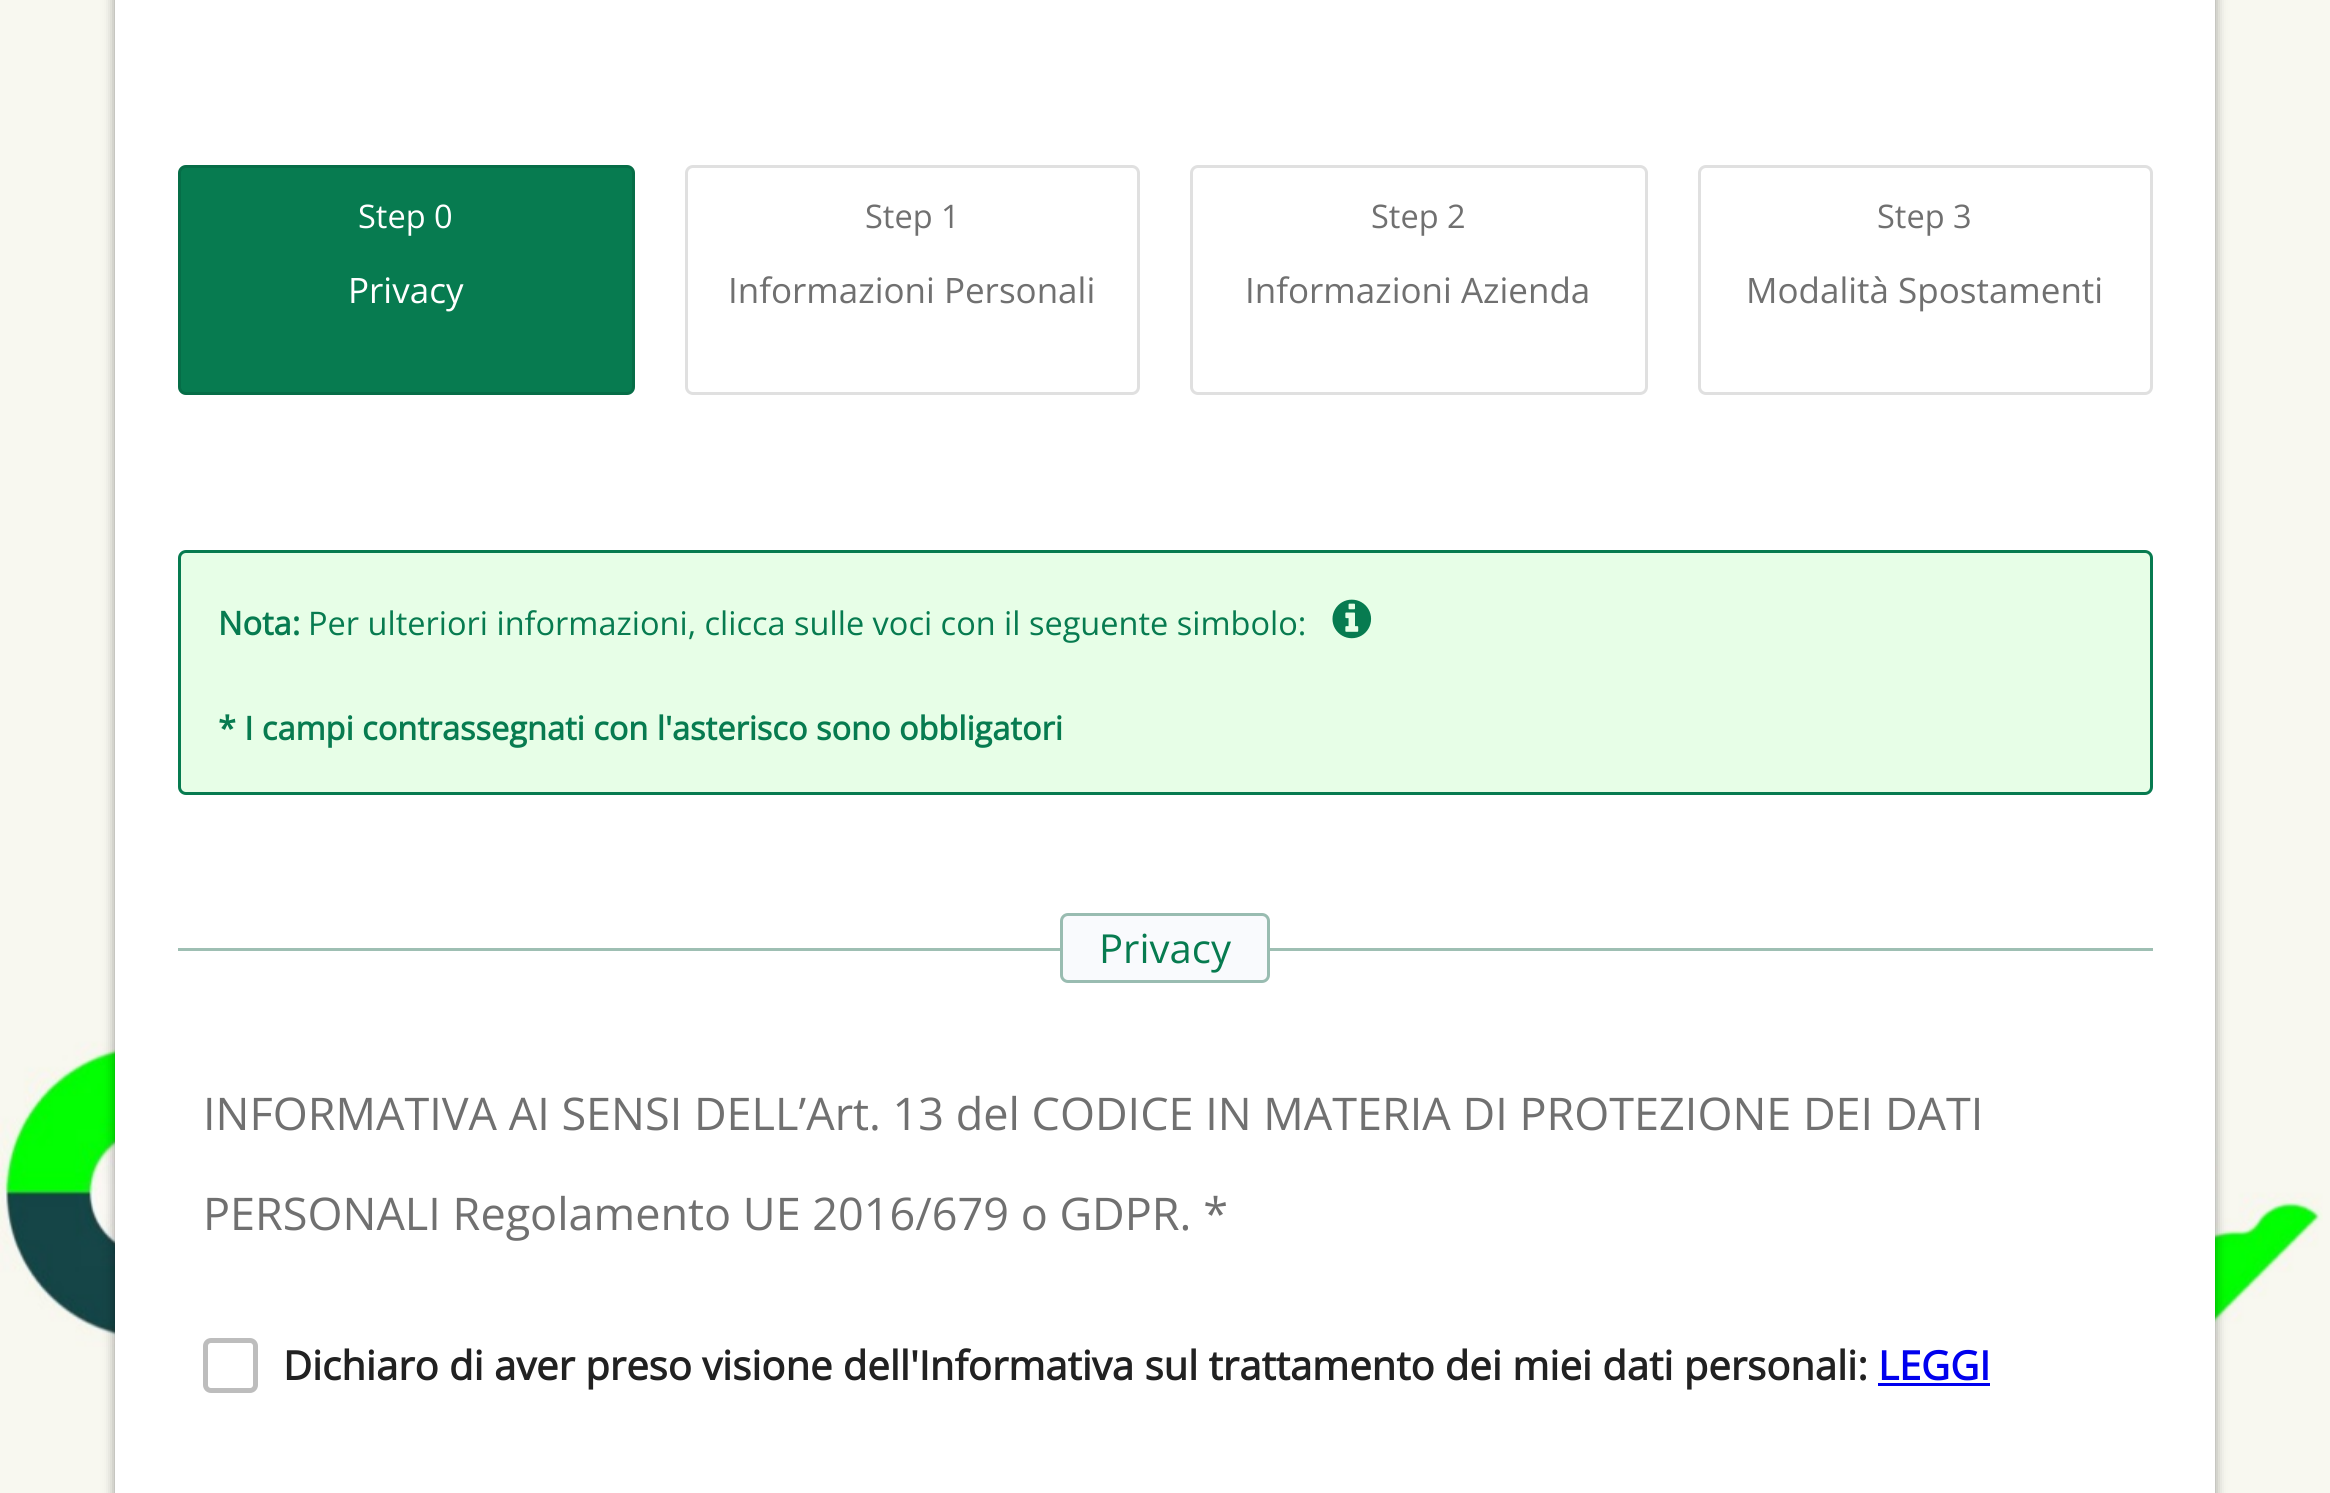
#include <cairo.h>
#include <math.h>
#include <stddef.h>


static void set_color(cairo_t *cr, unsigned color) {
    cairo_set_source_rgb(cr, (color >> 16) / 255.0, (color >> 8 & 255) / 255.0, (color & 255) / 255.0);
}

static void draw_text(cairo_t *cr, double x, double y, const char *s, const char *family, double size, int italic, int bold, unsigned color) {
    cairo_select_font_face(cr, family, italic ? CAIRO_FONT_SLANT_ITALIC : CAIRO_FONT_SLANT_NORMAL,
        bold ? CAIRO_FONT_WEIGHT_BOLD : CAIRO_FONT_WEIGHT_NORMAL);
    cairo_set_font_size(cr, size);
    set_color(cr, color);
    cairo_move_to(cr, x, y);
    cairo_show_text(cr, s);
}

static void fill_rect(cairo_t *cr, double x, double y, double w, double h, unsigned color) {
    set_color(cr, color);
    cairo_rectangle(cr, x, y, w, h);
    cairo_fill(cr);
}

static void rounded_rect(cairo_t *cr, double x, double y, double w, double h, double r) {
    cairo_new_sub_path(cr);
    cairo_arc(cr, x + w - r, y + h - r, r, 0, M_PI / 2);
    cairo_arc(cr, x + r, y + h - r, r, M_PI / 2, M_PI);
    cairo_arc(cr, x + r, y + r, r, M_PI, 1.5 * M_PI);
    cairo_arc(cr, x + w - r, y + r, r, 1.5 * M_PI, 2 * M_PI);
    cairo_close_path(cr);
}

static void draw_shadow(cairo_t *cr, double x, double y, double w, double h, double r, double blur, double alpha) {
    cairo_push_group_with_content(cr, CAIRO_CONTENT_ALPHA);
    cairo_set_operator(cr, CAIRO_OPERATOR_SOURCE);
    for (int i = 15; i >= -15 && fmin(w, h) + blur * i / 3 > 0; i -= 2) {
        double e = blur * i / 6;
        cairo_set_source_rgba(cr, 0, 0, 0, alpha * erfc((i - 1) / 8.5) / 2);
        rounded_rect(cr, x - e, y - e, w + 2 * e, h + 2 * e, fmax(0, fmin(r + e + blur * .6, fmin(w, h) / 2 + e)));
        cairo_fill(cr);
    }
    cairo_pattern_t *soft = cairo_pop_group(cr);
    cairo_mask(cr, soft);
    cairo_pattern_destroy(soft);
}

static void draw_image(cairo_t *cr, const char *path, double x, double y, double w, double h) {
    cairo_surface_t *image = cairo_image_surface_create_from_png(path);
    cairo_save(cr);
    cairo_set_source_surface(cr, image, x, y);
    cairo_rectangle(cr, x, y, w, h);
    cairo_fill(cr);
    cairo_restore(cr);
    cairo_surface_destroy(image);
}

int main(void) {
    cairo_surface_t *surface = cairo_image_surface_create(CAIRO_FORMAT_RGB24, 2330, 1493);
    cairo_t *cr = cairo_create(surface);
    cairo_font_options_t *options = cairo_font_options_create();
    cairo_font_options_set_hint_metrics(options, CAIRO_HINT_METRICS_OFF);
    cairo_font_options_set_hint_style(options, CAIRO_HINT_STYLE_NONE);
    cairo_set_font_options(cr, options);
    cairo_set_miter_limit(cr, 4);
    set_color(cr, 0xF8F8F0);
    cairo_paint(cr);
    draw_image(cr, "assets/img1.png", 0, 415, 2323, 932);
    set_color(cr, 0x000000);
    draw_shadow(cr, 115, -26, 2100, 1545, 8, 6, 0.4);
    fill_rect(cr, 115, 0, 2100, 1493, 0xFFFFFF);
    set_color(cr, 0x077B50);
    rounded_rect(cr, 178, 165, 457, 230, 8);
    cairo_fill(cr);
    rounded_rect(cr, 179.5, 166.5, 454, 227, 6.5);
    cairo_set_source_rgba(cr, 0, 0, 0, 0.12);
    cairo_set_line_width(cr, 3);
    cairo_stroke(cr);
    draw_text(cr, 358, 228, "Step 0", "Open Sans", 32.5, 0, 0, 0xFFFFFF);
    draw_text(cr, 348, 303, "Privacy", "Open Sans", 35, 0, 0, 0xFFFFFF);
    rounded_rect(cr, 686.5, 166.5, 452, 227, 6.5);
    set_color(cr, 0xE0E0E0);
    cairo_stroke(cr);
    draw_text(cr, 865, 228, "Step 1", "Open Sans", 32.5, 0, 0, 0x707070);
    draw_text(cr, 728, 303, "Informazioni Personali", "Open Sans", 35, 0, 0, 0x707070);
    rounded_rect(cr, 1191.5, 166.5, 455, 227, 6.5);
    set_color(cr, 0xE0E0E0);
    cairo_stroke(cr);
    draw_text(cr, 1371, 228, "Step 2", "Open Sans", 32.5, 0, 0, 0x707070);
    draw_text(cr, 1245, 303, "Informazioni Azienda", "Open Sans", 35, 0, 0, 0x707070);
    rounded_rect(cr, 1699.5, 166.5, 452, 227, 6.5);
    set_color(cr, 0xE0E0E0);
    cairo_stroke(cr);
    draw_text(cr, 1877, 228, "Step 3", "Open Sans", 32.5, 0, 0, 0x707070);
    draw_text(cr, 1746, 303, "Modalità Spostamenti", "Open Sans", 35, 0, 0, 0x707070);
    set_color(cr, 0xE7FEE7);
    rounded_rect(cr, 179.5, 551.5, 1972, 242, 6.5);
    cairo_fill_preserve(cr);
    set_color(cr, 0x077B50);
    cairo_stroke(cr);
    draw_text(cr, 218, 635, "Nota:", "Open Sans", 32.5, 0, 1, 0x077B50);
    draw_text(cr, 308, 635, "Per ulteriori informazioni, clicca sulle voci con il seguente simbolo:", "Open Sans", 32.5, 0, 0, 0x077B50);
    draw_image(cr, "assets/img2.png", 1332, 599, 40, 40);
    draw_text(cr, 218, 740, "* I campi contrassegnati con l'asterisco sono obbligatori", "Open Sans", 32.5, 0, 1, 0x077B50);
    fill_rect(cr, 178, 948, 1975, 3, 0x9EBFB3);
    set_color(cr, 0xF9FAFD);
    rounded_rect(cr, 1060, 913, 210, 70, 8);
    cairo_fill(cr);
    rounded_rect(cr, 1061.5, 914.5, 207, 67, 6.5);
    cairo_set_source_rgba(cr, 0.047, 0.373, 0.251, 0.4);
    cairo_stroke(cr);
    draw_text(cr, 1099, 963, "Privacy", "Open Sans", 40, 0, 0, 0x077B50);
    draw_text(cr, 203, 1130, "INFORMATIVA AI SENSI DELL’Art. 13 del CODICE IN MATERIA DI PROTEZIONE DEI DATI", "Open Sans", 45, 0, 0, 0x707070);
    draw_text(cr, 203, 1230, "PERSONALI Regolamento UE 2016/679 o GDPR. *", "Open Sans", 45, 0, 0, 0x707070);
    rounded_rect(cr, 205.5, 1340.5, 50, 50, 5.5);
    set_color(cr, 0xBDBDBD);
    cairo_set_line_width(cr, 5);
    cairo_stroke(cr);
    draw_text(cr, 283, 1380, "Dichiaro di aver preso visione dell'Informativa sul trattamento dei miei dati personali:", "Open Sans", 40, 0, 1, 0x212121);
    draw_text(cr, 1878, 1380, "LEGGI", "Open Sans", 40, 0, 1, 0x0000EE);
    fill_rect(cr, 1878, 1383, 112, 3, 0x0000EE);
    cairo_surface_write_to_png(surface, "output.png");
    cairo_font_options_destroy(options);
    cairo_destroy(cr);
    cairo_surface_destroy(surface);
    return 0;
}
